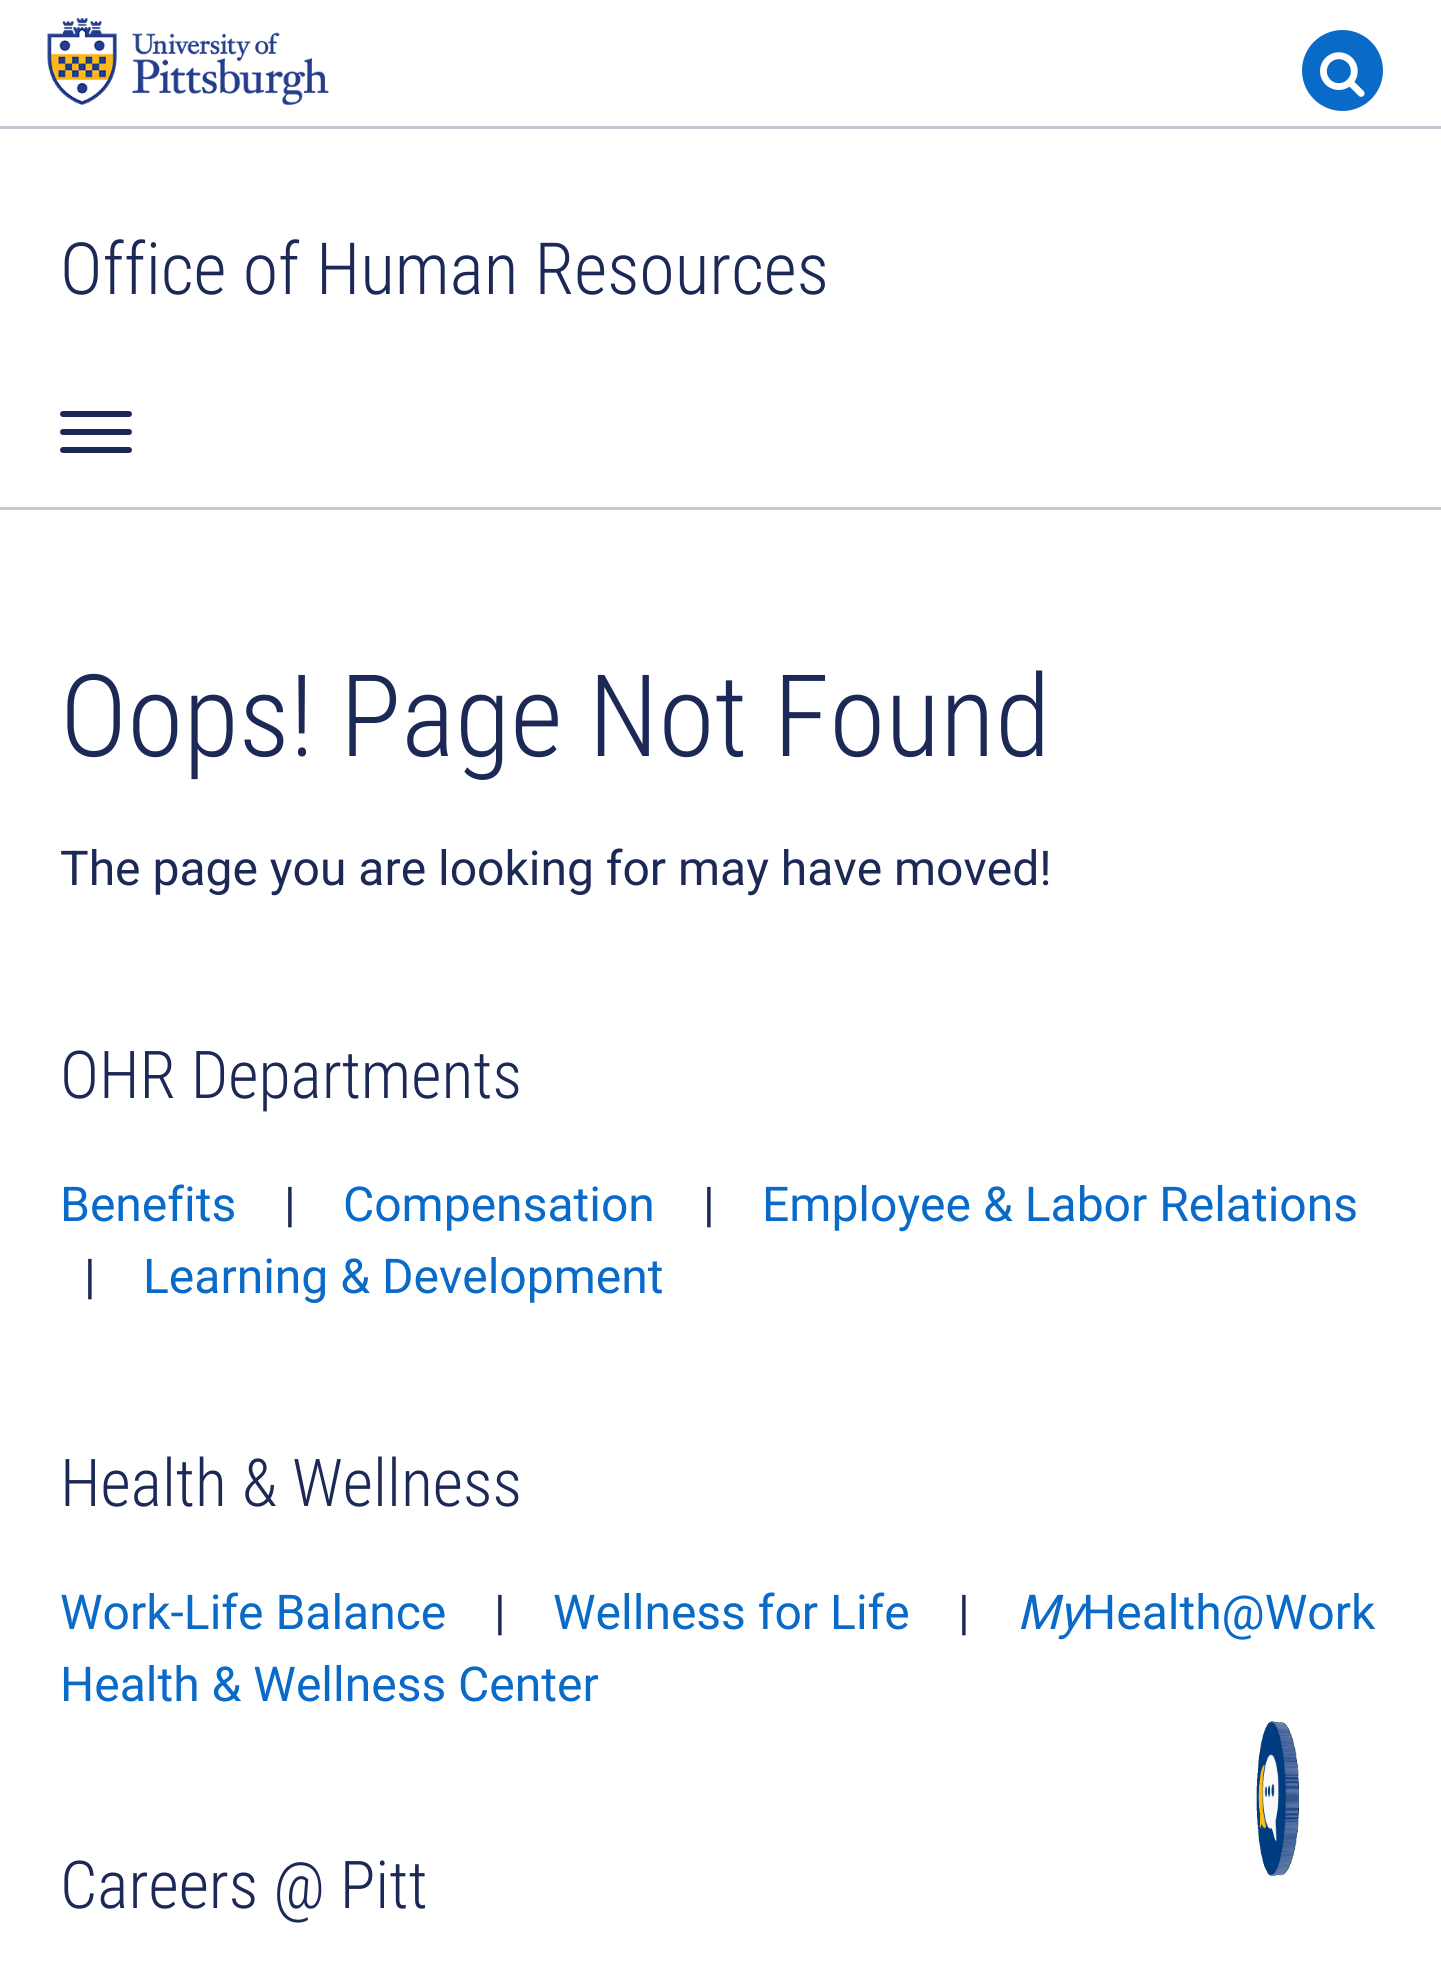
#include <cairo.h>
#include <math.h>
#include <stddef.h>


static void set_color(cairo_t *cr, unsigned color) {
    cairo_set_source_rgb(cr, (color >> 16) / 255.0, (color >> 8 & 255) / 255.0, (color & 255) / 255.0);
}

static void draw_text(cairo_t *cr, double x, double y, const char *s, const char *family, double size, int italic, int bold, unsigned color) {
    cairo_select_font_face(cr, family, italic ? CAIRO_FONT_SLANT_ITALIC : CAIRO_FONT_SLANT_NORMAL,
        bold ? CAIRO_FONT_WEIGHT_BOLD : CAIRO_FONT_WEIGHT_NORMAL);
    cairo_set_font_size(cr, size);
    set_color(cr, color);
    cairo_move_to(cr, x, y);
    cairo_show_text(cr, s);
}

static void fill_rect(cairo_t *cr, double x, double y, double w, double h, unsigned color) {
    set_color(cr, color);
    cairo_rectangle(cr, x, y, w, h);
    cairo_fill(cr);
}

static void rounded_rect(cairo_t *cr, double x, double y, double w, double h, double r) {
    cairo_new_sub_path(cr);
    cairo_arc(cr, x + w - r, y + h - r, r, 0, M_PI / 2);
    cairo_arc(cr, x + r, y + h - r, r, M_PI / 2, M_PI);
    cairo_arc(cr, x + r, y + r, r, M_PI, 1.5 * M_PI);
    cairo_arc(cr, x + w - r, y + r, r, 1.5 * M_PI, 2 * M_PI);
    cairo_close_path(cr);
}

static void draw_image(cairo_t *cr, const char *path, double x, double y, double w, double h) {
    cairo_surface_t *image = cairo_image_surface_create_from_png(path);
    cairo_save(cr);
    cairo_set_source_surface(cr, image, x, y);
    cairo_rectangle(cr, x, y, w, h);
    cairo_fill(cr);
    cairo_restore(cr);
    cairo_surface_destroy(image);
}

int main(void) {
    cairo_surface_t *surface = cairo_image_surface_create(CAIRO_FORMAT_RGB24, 1441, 1969);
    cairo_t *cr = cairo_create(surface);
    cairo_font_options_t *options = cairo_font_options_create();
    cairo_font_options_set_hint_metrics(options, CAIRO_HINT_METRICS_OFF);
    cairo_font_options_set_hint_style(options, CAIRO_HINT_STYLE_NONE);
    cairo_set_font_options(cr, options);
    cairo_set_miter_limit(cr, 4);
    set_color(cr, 0xFFFFFF);
    cairo_paint(cr);
    fill_rect(cr, 0, 126, 1441, 3, 0xC6C9D5);
    draw_image(cr, "assets/img1.png", 47, 18, 282, 87);
    set_color(cr, 0x096AC8);
    cairo_arc(cr, 1342.5, 70.5, 40.5, 0, 2 * M_PI);
    cairo_fill(cr);
    draw_image(cr, "assets/img2.png", 1320, 52, 45, 45);
    draw_text(cr, 60, 294, "Office of Human Resources", "Roboto Condensed Light", 72, 0, 0, 0x1C2957);
    rounded_rect(cr, 60, 411, 72, 6, 3);
    cairo_fill(cr);
    rounded_rect(cr, 60, 429, 72, 6, 3);
    cairo_fill(cr);
    rounded_rect(cr, 60, 447, 72, 6, 3);
    cairo_fill(cr);
    fill_rect(cr, 0, 507, 1441, 3, 0xC6C9D5);
    draw_text(cr, 60, 756, "Oops! Page Not Found", "Roboto Condensed Light", 114, 0, 0, 0x1C2957);
    draw_text(cr, 60, 885, "The page you are looking for may have moved!", "Roboto", 48, 0, 0, 0x1C2957);
    draw_text(cr, 60, 1098, "OHR Departments", "Roboto Condensed Light", 66, 0, 0, 0x1C2957);
    draw_text(cr, 60, 1221, "Benefits", "Roboto", 48, 0, 0, 0x096AC8);
    draw_text(cr, 284, 1221, "|", "Roboto", 48, 0, 0, 0x1C2957);
    draw_text(cr, 343, 1221, "Compensation", "Roboto", 48, 0, 0, 0x096AC8);
    draw_text(cr, 703, 1221, "|", "Roboto", 48, 0, 0, 0x1C2957);
    draw_text(cr, 762, 1221, "Employee & Labor Relations", "Roboto", 48, 0, 0, 0x096AC8);
    draw_text(cr, 84, 1293, "|", "Roboto", 48, 0, 0, 0x1C2957);
    draw_text(cr, 143, 1293, "Learning & Development", "Roboto", 48, 0, 0, 0x096AC8);
    draw_text(cr, 60, 1506, "Health & Wellness", "Roboto Condensed Light", 66, 0, 0, 0x1C2957);
    draw_text(cr, 60, 1629, "Work-Life Balance", "Roboto", 48, 0, 0, 0x096AC8);
    draw_text(cr, 494, 1629, "|", "Roboto", 48, 0, 0, 0x1C2957);
    draw_text(cr, 553, 1629, "Wellness for Life", "Roboto", 48, 0, 0, 0x096AC8);
    draw_text(cr, 958, 1629, "|", "Roboto", 48, 0, 0, 0x1C2957);
    draw_text(cr, 1017, 1629, "My", "Roboto", 48, 1, 0, 0x096AC8);
    draw_text(cr, 1082, 1629, "Health@Work", "Roboto", 48, 0, 0, 0x096AC8);
    draw_text(cr, 60, 1701, "Health & Wellness Center", "Roboto", 48, 0, 0, 0x096AC8);
    draw_text(cr, 60, 1908, "Careers @ Pitt", "Roboto Condensed Light", 66, 0, 0, 0x1C2957);
    draw_image(cr, "assets/img3.png", 1256, 1721, 43, 155);
    cairo_surface_write_to_png(surface, "output.png");
    cairo_font_options_destroy(options);
    cairo_destroy(cr);
    cairo_surface_destroy(surface);
    return 0;
}
